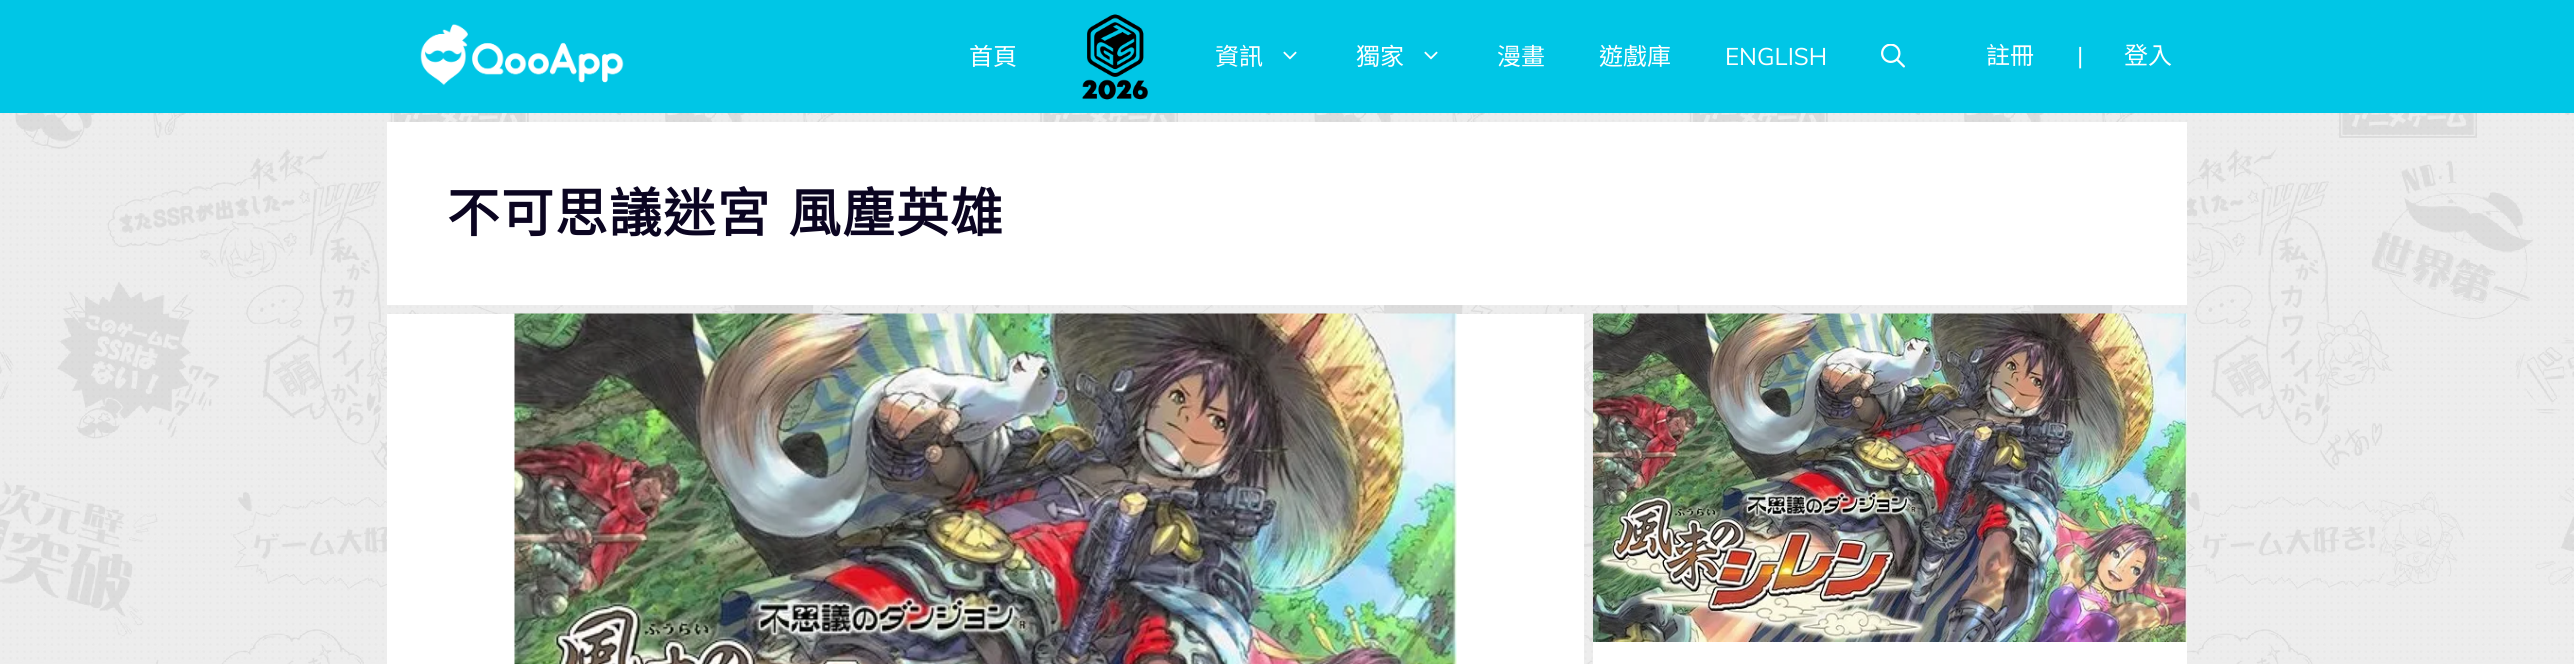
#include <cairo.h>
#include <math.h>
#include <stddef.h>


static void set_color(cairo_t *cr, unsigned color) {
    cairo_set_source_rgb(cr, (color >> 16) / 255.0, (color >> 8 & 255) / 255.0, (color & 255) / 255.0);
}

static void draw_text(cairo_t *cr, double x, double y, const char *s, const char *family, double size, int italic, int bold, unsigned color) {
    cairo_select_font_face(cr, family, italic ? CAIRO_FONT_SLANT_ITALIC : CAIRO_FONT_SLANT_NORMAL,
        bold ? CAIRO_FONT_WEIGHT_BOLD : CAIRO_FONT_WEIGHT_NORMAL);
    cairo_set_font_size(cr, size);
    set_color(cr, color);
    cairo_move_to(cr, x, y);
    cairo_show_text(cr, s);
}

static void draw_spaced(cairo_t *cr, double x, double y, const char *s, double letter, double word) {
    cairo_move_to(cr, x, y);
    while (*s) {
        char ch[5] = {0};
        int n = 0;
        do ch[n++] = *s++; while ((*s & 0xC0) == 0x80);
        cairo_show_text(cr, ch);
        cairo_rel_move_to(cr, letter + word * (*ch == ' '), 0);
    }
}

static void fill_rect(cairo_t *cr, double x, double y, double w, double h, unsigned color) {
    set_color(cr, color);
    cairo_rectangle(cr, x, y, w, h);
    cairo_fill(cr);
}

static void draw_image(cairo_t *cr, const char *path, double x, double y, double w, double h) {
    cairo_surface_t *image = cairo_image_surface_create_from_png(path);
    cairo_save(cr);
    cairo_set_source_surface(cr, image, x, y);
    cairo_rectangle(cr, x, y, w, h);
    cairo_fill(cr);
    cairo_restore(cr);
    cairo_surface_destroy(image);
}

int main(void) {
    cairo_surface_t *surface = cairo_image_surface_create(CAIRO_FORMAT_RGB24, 2574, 664);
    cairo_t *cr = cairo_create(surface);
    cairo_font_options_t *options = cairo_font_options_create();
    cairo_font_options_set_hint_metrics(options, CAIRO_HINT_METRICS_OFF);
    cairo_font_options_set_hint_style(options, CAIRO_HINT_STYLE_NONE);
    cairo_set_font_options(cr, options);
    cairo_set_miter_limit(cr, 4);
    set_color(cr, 0xFFFFFF);
    cairo_paint(cr);
    draw_image(cr, "assets/img1.png", 0, 113, 2574, 551);
    fill_rect(cr, 0, 0, 2574, 113, 0x00C6E6);
    draw_image(cr, "assets/img2.png", 420, 24, 204, 62);
    draw_text(cr, 969, 65, "首頁", "Noto Sans CJK TC", 24, 0, 0, 0xFFFFFF);
    draw_image(cr, "assets/img3.png", 1082, 14, 66, 86);
    draw_text(cr, 1215, 65, "資訊", "Noto Sans CJK TC", 24, 0, 0, 0xFFFFFF);
    draw_image(cr, "assets/img4.png", 1283, 51, 14, 9);
    draw_text(cr, 1356, 65, "獨家", "Noto Sans CJK TC", 24, 0, 0, 0xFFFFFF);
    draw_image(cr, "assets/img4.png", 1424, 51, 14, 9);
    draw_text(cr, 1497, 65, "漫畫", "Noto Sans CJK TC", 24, 0, 0, 0xFFFFFF);
    draw_text(cr, 1599, 65, "遊戲庫", "Noto Sans CJK TC", 24, 0, 0, 0xFFFFFF);
    draw_text(cr, 1725, 65, "ENGLISH", "Muli", 24, 0, 0, 0xFFFFFF);
    draw_image(cr, "assets/img5.png", 1881, 44, 24, 24);
    draw_text(cr, 1986, 64, "註冊", "Noto Sans CJK TC", 24, 0, 0, 0xFFFFFF);
    draw_text(cr, 2077, 64, "|", "Muli", 24, 0, 0, 0xFFFFFF);
    draw_text(cr, 2124, 64, "登入", "Noto Sans CJK TC", 24, 0, 0, 0xFFFFFF);
    fill_rect(cr, 387, 122, 1800, 183, 0xFFFFFF);
    cairo_select_font_face(cr, "Noto Sans CJK TC", CAIRO_FONT_SLANT_NORMAL, CAIRO_FONT_WEIGHT_BOLD);
    cairo_set_font_size(cr, 52.5);
    set_color(cr, 0x0B0521);
    draw_spaced(cr, 447, 232, "不可思議迷宮 風塵英雄", 1.5, 4);
    fill_rect(cr, 387, 314, 1197, 350, 0xFFFFFF);
    draw_image(cr, "assets/img6.png", 514, 313, 943, 351);
    fill_rect(cr, 1593, 642, 594, 22, 0xFFFFFF);
    draw_image(cr, "assets/img7.png", 1593, 313, 594, 329);
    cairo_surface_write_to_png(surface, "output.png");
    cairo_font_options_destroy(options);
    cairo_destroy(cr);
    cairo_surface_destroy(surface);
    return 0;
}
